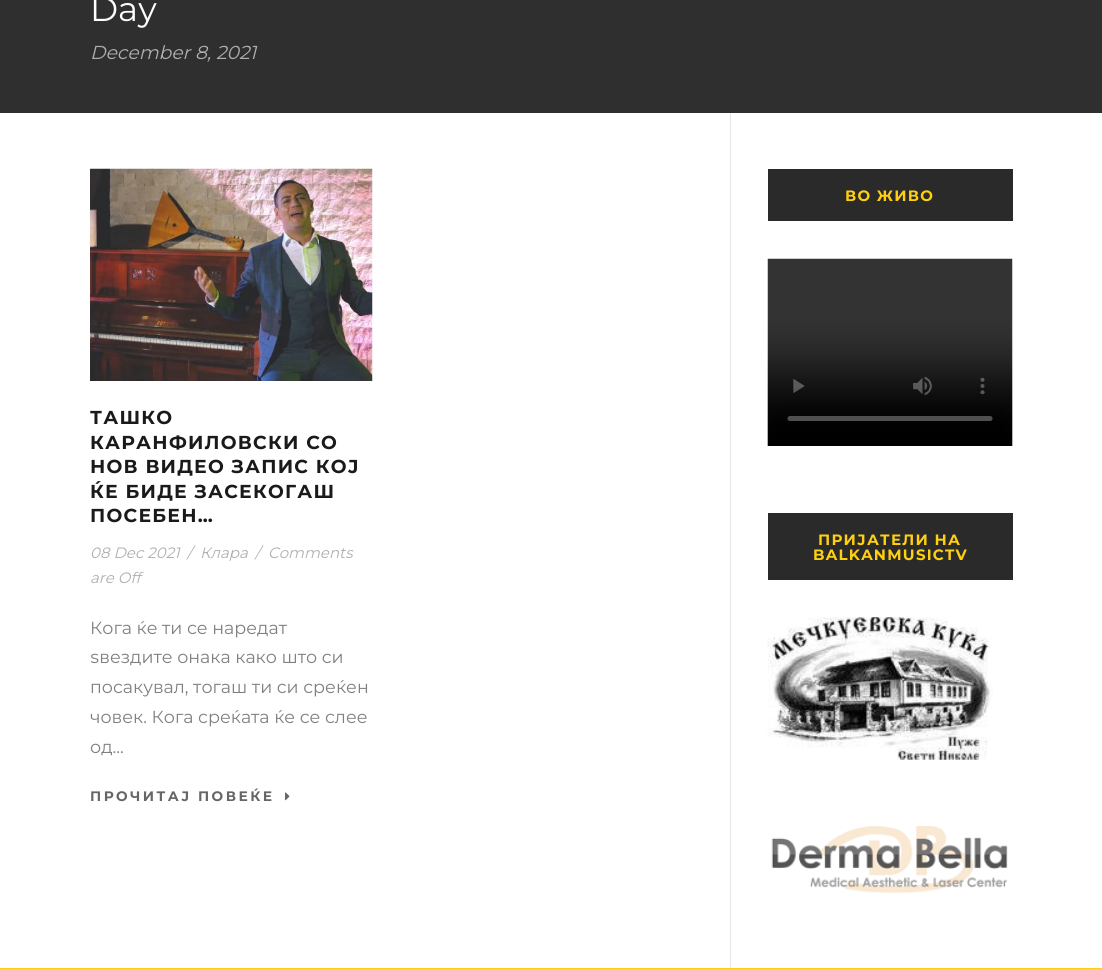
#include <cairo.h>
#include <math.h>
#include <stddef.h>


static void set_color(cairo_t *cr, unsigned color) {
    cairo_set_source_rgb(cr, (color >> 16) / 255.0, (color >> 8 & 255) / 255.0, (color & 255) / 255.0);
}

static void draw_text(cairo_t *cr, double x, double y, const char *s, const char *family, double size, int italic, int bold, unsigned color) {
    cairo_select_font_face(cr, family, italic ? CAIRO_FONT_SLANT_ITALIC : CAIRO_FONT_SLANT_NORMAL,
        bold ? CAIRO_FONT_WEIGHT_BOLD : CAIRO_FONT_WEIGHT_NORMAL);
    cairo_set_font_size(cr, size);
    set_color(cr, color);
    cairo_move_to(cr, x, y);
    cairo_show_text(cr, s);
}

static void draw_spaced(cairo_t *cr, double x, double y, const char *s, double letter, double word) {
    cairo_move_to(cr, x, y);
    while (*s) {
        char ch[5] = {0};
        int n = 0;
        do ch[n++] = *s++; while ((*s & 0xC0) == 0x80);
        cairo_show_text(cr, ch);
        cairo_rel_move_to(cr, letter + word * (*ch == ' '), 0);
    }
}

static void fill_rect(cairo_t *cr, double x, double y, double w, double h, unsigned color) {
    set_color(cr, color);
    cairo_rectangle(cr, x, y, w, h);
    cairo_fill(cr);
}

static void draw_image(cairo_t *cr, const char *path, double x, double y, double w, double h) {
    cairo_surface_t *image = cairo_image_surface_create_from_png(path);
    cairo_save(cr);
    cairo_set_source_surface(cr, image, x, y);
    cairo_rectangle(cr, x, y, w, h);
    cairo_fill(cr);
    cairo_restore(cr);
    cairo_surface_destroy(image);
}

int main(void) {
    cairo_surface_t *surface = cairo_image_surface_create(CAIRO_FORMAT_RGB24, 1102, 969);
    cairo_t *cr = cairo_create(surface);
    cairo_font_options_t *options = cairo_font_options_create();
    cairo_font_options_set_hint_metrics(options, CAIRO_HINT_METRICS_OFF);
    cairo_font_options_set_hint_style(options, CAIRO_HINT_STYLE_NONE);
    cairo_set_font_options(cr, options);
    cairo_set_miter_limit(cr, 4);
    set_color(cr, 0xFFFFFF);
    cairo_paint(cr);
    fill_rect(cr, 0, 0, 1102, 113, 0x2F2F2F);
    draw_text(cr, 90, 21, "Day", "Montserrat", 34, 0, 0, 0xFFFFFF);
    draw_text(cr, 90, 59, "December 8, 2021", "Montserrat", 18.75, 1, 0, 0xAFAFAF);
    draw_image(cr, "assets/img1.png", 90, 168, 283, 213);
    cairo_select_font_face(cr, "Montserrat", CAIRO_FONT_SLANT_NORMAL, CAIRO_FONT_WEIGHT_BOLD);
    set_color(cr, 0x1A1A1A);
    draw_spaced(cr, 90, 424, "ТАШКО", 1.25, 0);
    draw_spaced(cr, 90, 449, "КАРАНФИЛОВСКИ СО", 1.25, 0);
    draw_spaced(cr, 90, 473, "НОВ ВИДЕО ЗАПИС КОЈ", 1.25, 0);
    draw_spaced(cr, 90, 498, "ЌЕ БИДЕ ЗАСЕКОГАШ", 1.25, 0);
    draw_spaced(cr, 90, 522, "ПОСЕБЕН…", 1.25, 0);
    draw_text(cr, 90, 558, "08 Dec 2021", "Montserrat", 15, 1, 0, 0xAFAFAF);
    draw_text(cr, 187, 558, "/", "Montserrat", 15, 1, 0, 0xAFAFAF);
    draw_text(cr, 200, 558, "Клара", "Montserrat", 15, 1, 0, 0xAFAFAF);
    draw_text(cr, 255, 558, "/", "Montserrat", 15, 1, 0, 0xAFAFAF);
    draw_text(cr, 268, 558, "Comments", "Montserrat", 15, 1, 0, 0xAFAFAF);
    draw_text(cr, 90, 583, "are Off", "Montserrat", 15, 1, 0, 0xAFAFAF);
    draw_text(cr, 90, 634, "Кога ќе ти се наредат", "Montserrat", 17.5, 0, 0, 0x808080);
    draw_text(cr, 90, 663, "ѕвездите онака како што си", "Montserrat", 17.5, 0, 0, 0x808080);
    draw_text(cr, 90, 693, "посакувал, тогаш ти си среќен", "Montserrat", 17.5, 0, 0, 0x808080);
    draw_text(cr, 90, 723, "човек. Кога среќата ќе се слее", "Montserrat", 17.5, 0, 0, 0x808080);
    draw_text(cr, 90, 753, "од...", "Montserrat", 17.5, 0, 0, 0x808080);
    cairo_select_font_face(cr, "Montserrat", CAIRO_FONT_SLANT_NORMAL, CAIRO_FONT_WEIGHT_BOLD);
    cairo_set_font_size(cr, 13.75);
    set_color(cr, 0x666666);
    draw_spaced(cr, 90, 801, "ПРОЧИТАЈ ПОВЕЌЕ", 2.5, 0);
    draw_image(cr, "assets/img2.png", 285, 792, 5, 9);
    fill_rect(cr, 730, 113, 1, 855, 0xE5E5E5);
    fill_rect(cr, 768, 169, 245, 52, 0x2A2A2A);
    cairo_set_font_size(cr, 15);
    set_color(cr, 0xFFD012);
    draw_spaced(cr, 845, 201, "ВО ЖИВО", 1.25, 0);
    draw_image(cr, "assets/img3.png", 767, 258, 246, 188);
    fill_rect(cr, 768, 513, 245, 67, 0x2A2A2A);
    set_color(cr, 0xFFD012);
    draw_spaced(cr, 818, 545, "ПРИЈАТЕЛИ НА", 1.25, 0);
    draw_spaced(cr, 813, 560, "BALKANMUSICTV", 1.25, 0);
    draw_image(cr, "assets/img4.png", 767, 617, 226, 143);
    draw_image(cr, "assets/img5.png", 771, 826, 237, 68);
    fill_rect(cr, 0, 968, 1102, 1, 0xFFD012);
    cairo_surface_write_to_png(surface, "output.png");
    cairo_font_options_destroy(options);
    cairo_destroy(cr);
    cairo_surface_destroy(surface);
    return 0;
}
